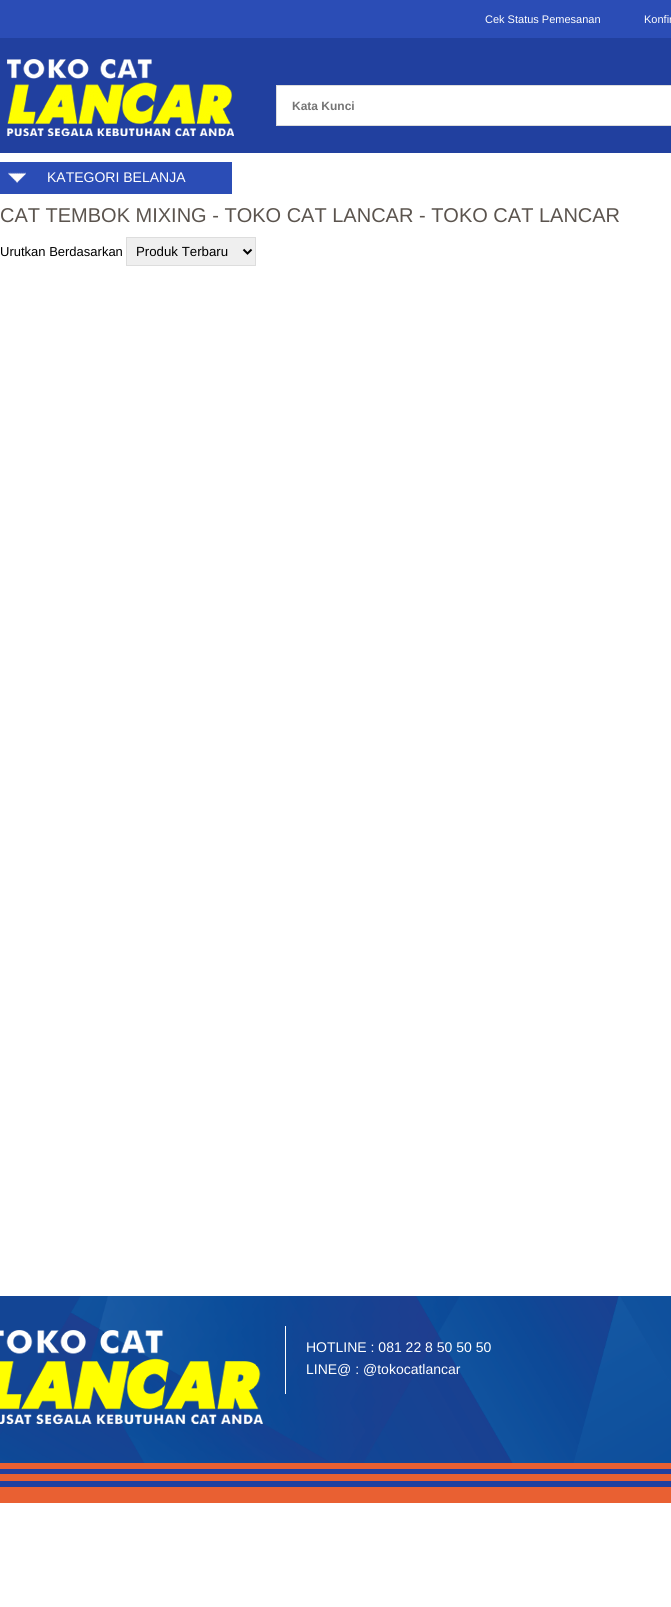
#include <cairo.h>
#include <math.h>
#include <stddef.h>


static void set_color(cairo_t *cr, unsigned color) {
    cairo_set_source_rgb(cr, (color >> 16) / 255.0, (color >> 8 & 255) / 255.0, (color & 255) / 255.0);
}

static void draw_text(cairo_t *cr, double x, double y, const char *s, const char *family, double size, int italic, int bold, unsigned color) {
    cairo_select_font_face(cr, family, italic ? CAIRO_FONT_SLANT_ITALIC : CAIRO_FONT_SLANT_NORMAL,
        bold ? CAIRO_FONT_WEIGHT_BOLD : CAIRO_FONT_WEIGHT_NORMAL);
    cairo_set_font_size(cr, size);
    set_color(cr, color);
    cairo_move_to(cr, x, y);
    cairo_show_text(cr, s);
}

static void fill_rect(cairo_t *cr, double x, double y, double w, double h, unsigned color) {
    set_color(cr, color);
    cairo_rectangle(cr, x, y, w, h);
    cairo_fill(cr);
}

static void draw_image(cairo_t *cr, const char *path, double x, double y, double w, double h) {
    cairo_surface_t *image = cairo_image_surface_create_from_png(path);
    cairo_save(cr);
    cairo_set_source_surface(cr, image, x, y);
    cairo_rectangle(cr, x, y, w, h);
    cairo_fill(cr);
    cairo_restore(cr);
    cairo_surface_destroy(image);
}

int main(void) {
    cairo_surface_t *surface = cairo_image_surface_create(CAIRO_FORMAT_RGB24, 671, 1607);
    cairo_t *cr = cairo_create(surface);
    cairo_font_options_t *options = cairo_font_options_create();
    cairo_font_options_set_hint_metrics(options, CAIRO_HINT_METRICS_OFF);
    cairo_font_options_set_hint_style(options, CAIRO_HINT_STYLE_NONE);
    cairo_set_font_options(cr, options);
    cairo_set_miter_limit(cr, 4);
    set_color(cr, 0xFFFFFF);
    cairo_paint(cr);
    fill_rect(cr, 0, 0, 671, 38, 0x2B4DB6);
    draw_text(cr, 485, 23, "Cek Status Pemesanan", "Liberation Sans", 11, 0, 0, 0xFFFFFF);
    draw_text(cr, 644, 23, "Konfir", "Liberation Sans", 11, 0, 0, 0xFFFFFF);
    fill_rect(cr, 0, 38, 671, 115, 0x21409F);
    draw_image(cr, "assets/img1.png", 7, 59, 227, 77);
    cairo_rectangle(cr, 276.5, 85.5, 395, 40);
    set_color(cr, 0xDDDDDD);
    cairo_set_line_width(cr, 1);
    cairo_stroke(cr);
    fill_rect(cr, 277, 86, 394, 39, 0xFFFFFF);
    draw_text(cr, 292, 110, "Kata Kunci", "Liberation Sans", 12, 0, 1, 0x757575);
    fill_rect(cr, 0, 162, 232, 32, 0x2B4DB6);
    draw_image(cr, "assets/img2.png", 8, 172, 18, 11);
    draw_text(cr, 47, 182, "KATEGORI BELANJA", "Liberation Sans", 14, 0, 0, 0xFFFFFF);
    draw_text(cr, 0, 222, "CAT TEMBOK MIXING - TOKO CAT LANCAR - TOKO CAT LANCAR", "Liberation Sans", 20, 0, 0, 0x5B544E);
    draw_text(cr, 0, 256, "Urutkan Berdasarkan", "Liberation Sans", 13, 0, 0, 0x000000);
    set_color(cr, 0xEFEFEF);
    cairo_rectangle(cr, 126.5, 237.5, 129, 28);
    cairo_fill_preserve(cr);
    set_color(cr, 0xDDDDDD);
    cairo_stroke(cr);
    cairo_new_path(cr);
    cairo_move_to(cr, 243.5, 249.5);
    cairo_line_to(cr, 247.5, 253.5);
    cairo_line_to(cr, 251.5, 249.5);
    set_color(cr, 0x000000);
    cairo_set_line_width(cr, 2);
    cairo_stroke(cr);
    draw_text(cr, 136, 256, "Produk Terbaru", "Liberation Sans", 13.25, 0, 0, 0x000000);
    draw_image(cr, "assets/img3.png", 0, 1296, 671, 167);
    draw_image(cr, "assets/img4.png", 0, 1330, 263, 94);
    fill_rect(cr, 285, 1326, 1, 68, 0xFFFFFF);
    draw_text(cr, 306, 1352, "HOTLINE : 081 22 8 50 50 50", "Liberation Sans", 14, 0, 0, 0xFFFFFF);
    draw_text(cr, 306, 1374, "LINE@ : @tokocatlancar", "Liberation Sans", 14, 0, 0, 0xFFFFFF);
    fill_rect(cr, 0, 1469, 671, 18, 0x21409F);
    draw_image(cr, "assets/img5.png", 0, 1463, 671, 40);
    cairo_surface_write_to_png(surface, "output.png");
    cairo_font_options_destroy(options);
    cairo_destroy(cr);
    cairo_surface_destroy(surface);
    return 0;
}
